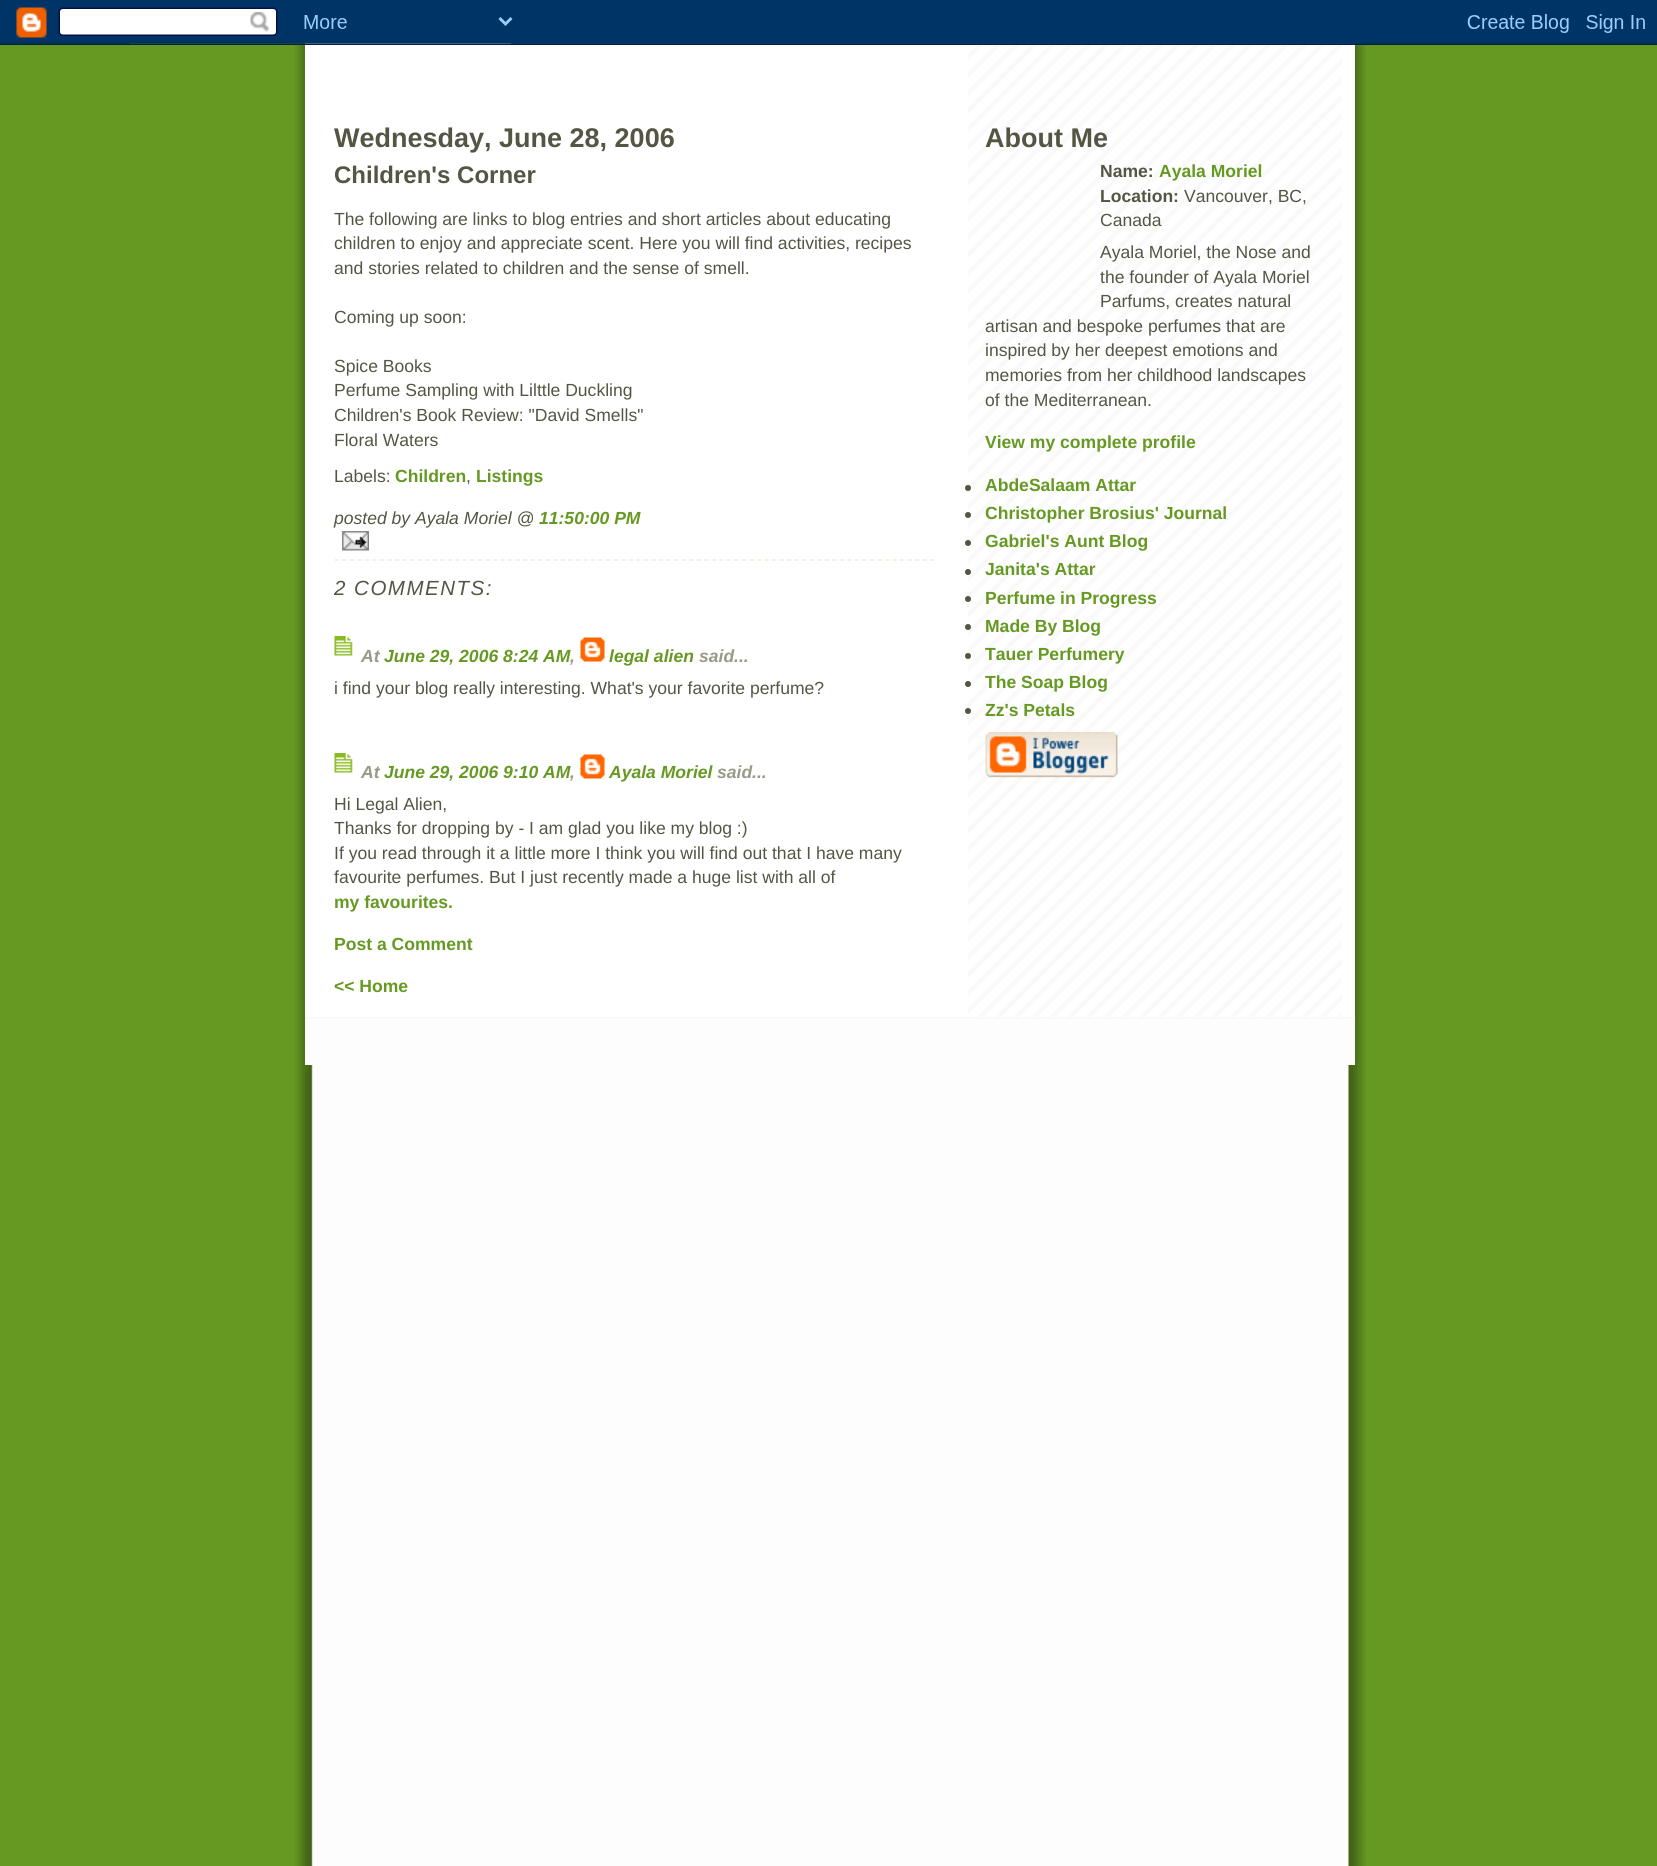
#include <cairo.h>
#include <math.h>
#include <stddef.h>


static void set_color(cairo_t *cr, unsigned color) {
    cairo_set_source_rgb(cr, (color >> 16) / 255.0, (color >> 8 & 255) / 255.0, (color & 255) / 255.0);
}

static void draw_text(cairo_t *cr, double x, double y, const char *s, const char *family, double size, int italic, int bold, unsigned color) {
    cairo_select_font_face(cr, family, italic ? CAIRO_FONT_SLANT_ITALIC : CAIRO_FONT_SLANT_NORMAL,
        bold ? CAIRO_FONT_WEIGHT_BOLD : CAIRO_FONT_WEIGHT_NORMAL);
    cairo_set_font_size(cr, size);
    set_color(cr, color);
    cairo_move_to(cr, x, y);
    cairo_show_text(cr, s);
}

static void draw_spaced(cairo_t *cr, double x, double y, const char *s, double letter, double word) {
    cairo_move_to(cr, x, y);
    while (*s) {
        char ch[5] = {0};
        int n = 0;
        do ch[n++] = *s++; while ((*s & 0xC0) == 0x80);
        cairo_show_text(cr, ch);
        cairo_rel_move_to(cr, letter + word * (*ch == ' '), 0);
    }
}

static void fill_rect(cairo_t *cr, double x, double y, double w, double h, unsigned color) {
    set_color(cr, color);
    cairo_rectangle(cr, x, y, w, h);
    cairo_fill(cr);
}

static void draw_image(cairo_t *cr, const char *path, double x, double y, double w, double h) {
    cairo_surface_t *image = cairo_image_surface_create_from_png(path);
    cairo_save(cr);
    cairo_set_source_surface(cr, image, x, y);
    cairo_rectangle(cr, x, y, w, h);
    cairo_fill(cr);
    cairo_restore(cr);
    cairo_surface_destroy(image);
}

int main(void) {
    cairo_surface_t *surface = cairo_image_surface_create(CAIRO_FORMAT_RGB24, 1657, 1866);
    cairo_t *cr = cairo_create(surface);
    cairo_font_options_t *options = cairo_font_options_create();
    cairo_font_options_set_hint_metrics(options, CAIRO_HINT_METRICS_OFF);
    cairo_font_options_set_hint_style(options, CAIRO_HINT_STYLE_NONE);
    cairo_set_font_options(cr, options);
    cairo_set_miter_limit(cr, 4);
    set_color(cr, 0x669922);
    cairo_paint(cr);
    draw_image(cr, "assets/img1.png", 294, 43, 1072, 1823);
    fill_rect(cr, 305, 43, 1050, 974, 0xFFFFFF);
    draw_image(cr, "assets/img3.png", 968, 43, 374, 974);
    draw_image(cr, "assets/img2.png", 0, 0, 1657, 45);
    draw_text(cr, 334, 147, "Wednesday, June 28, 2006", "Liberation Sans", 27, 0, 1, 0x555544);
    draw_text(cr, 334, 183, "Children's Corner", "Liberation Sans", 24, 0, 1, 0x555544);
    draw_text(cr, 334, 225, "The following are links to blog entries and short articles about educating", "Liberation Sans", 17.55, 0, 0, 0x555544);
    draw_text(cr, 334, 249, "children to enjoy and appreciate scent. Here you will find activities, recipes", "Liberation Sans", 17.55, 0, 0, 0x555544);
    draw_text(cr, 334, 274, "and stories related to children and the sense of smell.", "Liberation Sans", 17.55, 0, 0, 0x555544);
    draw_text(cr, 334, 323, "Coming up soon:", "Liberation Sans", 17.55, 0, 0, 0x555544);
    draw_text(cr, 334, 372, "Spice Books", "Liberation Sans", 17.55, 0, 0, 0x555544);
    draw_text(cr, 334, 396, "Perfume Sampling with Lilttle Duckling", "Liberation Sans", 17.55, 0, 0, 0x555544);
    draw_text(cr, 334, 421, "Children's Book Review: \"David Smells\"", "Liberation Sans", 17.55, 0, 0, 0x555544);
    draw_text(cr, 334, 446, "Floral Waters", "Liberation Sans", 17.55, 0, 0, 0x555544);
    draw_text(cr, 334, 482, "Labels:", "Liberation Sans", 17.55, 0, 0, 0x555544);
    draw_text(cr, 395, 482, "Children", "Liberation Sans", 17.55, 0, 1, 0x669922);
    draw_text(cr, 466, 482, ",", "Liberation Sans", 17.55, 0, 0, 0x555544);
    draw_text(cr, 476, 482, "Listings", "Liberation Sans", 17.55, 0, 1, 0x669922);
    draw_text(cr, 334, 524, "posted by Ayala Moriel @", "Liberation Sans", 17.55, 1, 0, 0x555544);
    draw_text(cr, 539, 524, "11:50:00 PM", "Liberation Sans", 17.55, 1, 1, 0x669922);
    draw_image(cr, "assets/img4.png", 342, 531, 27, 20);
    cairo_new_path(cr);
    cairo_move_to(cr, 334.5, 560);
    cairo_line_to(cr, 934.5, 560);
    set_color(cr, 0xEEEEDD);
    cairo_set_line_width(cr, 1.5);
    cairo_set_dash(cr, (double[]){4.5, 3.04}, 2, 0);
    cairo_stroke(cr);
    cairo_select_font_face(cr, "Liberation Sans", CAIRO_FONT_SLANT_ITALIC, CAIRO_FONT_WEIGHT_NORMAL);
    cairo_set_font_size(cr, 20.5);
    set_color(cr, 0x555544);
    draw_spaced(cr, 334, 595, "2 COMMENTS:", 1.5, 0);
    draw_image(cr, "assets/img5.png", 334, 636, 19, 20);
    draw_text(cr, 361, 662, "At", "Liberation Sans", 17.55, 1, 1, 0x999988);
    draw_text(cr, 384, 662, "June 29, 2006 8:24 AM", "Liberation Sans", 17.55, 1, 1, 0x669922);
    draw_text(cr, 570, 662, ",", "Liberation Sans", 17.55, 1, 1, 0x999988);
    draw_image(cr, "assets/img6.png", 580, 637, 25, 25);
    draw_text(cr, 609, 662, "legal alien", "Liberation Sans", 17.55, 1, 1, 0x669922);
    draw_text(cr, 699, 662, "said...", "Liberation Sans", 17.55, 1, 1, 0x999988);
    draw_text(cr, 334, 694, "i find your blog really interesting. What's your favorite perfume?", "Liberation Sans", 17.55, 0, 0, 0x555544);
    draw_image(cr, "assets/img5.png", 334, 753, 19, 20);
    draw_text(cr, 361, 778, "At", "Liberation Sans", 17.55, 1, 1, 0x999988);
    draw_text(cr, 384, 778, "June 29, 2006 9:10 AM", "Liberation Sans", 17.55, 1, 1, 0x669922);
    draw_text(cr, 570, 778, ",", "Liberation Sans", 17.55, 1, 1, 0x999988);
    draw_image(cr, "assets/img6.png", 580, 754, 25, 25);
    draw_text(cr, 609, 778, "Ayala Moriel", "Liberation Sans", 17.55, 1, 1, 0x669922);
    draw_text(cr, 717, 778, "said...", "Liberation Sans", 17.55, 1, 1, 0x999988);
    draw_text(cr, 334, 810, "Hi Legal Alien,", "Liberation Sans", 17.55, 0, 0, 0x555544);
    draw_text(cr, 334, 834, "Thanks for dropping by - I am glad you like my blog :)", "Liberation Sans", 17.55, 0, 0, 0x555544);
    draw_text(cr, 334, 859, "If you read through it a little more I think you will find out that I have many", "Liberation Sans", 17.55, 0, 0, 0x555544);
    draw_text(cr, 334, 883, "favourite perfumes. But I just recently made a huge list with all of", "Liberation Sans", 17.55, 0, 0, 0x555544);
    draw_text(cr, 334, 908, "my favourites.", "Liberation Sans", 17.55, 0, 1, 0x669922);
    draw_text(cr, 334, 950, "Post a Comment", "Liberation Sans", 17.55, 0, 1, 0x669922);
    draw_text(cr, 334, 992, "<< Home", "Liberation Sans", 17.55, 0, 1, 0x669922);
    draw_text(cr, 985, 147, "About Me", "Liberation Sans", 27, 0, 1, 0x555544);
    draw_text(cr, 1100, 177, "Name:", "Liberation Sans", 17.55, 0, 1, 0x555544);
    draw_text(cr, 1159, 177, "Ayala Moriel", "Liberation Sans", 17.55, 0, 1, 0x669922);
    draw_text(cr, 1100, 202, "Location:", "Liberation Sans", 17.55, 0, 1, 0x555544);
    draw_text(cr, 1184, 202, "Vancouver, BC,", "Liberation Sans", 17.55, 0, 0, 0x555544);
    draw_text(cr, 1100, 226, "Canada", "Liberation Sans", 17.55, 0, 0, 0x555544);
    draw_text(cr, 1100, 258, "Ayala Moriel, the Nose and", "Liberation Sans", 17.55, 0, 0, 0x555544);
    draw_text(cr, 1100, 283, "the founder of Ayala Moriel", "Liberation Sans", 17.55, 0, 0, 0x555544);
    draw_text(cr, 1100, 307, "Parfums, creates natural", "Liberation Sans", 17.55, 0, 0, 0x555544);
    draw_text(cr, 985, 332, "artisan and bespoke perfumes that are", "Liberation Sans", 17.55, 0, 0, 0x555544);
    draw_text(cr, 985, 356, "inspired by her deepest emotions and", "Liberation Sans", 17.55, 0, 0, 0x555544);
    draw_text(cr, 985, 381, "memories from her childhood landscapes", "Liberation Sans", 17.55, 0, 0, 0x555544);
    draw_text(cr, 985, 406, "of the Mediterranean.", "Liberation Sans", 17.55, 0, 0, 0x555544);
    draw_text(cr, 985, 448, "View my complete profile", "Liberation Sans", 17.55, 0, 1, 0x669922);
    set_color(cr, 0x555544);
    cairo_new_path(cr);
    cairo_arc(cr, 968, 488, 3, 0, 2 * M_PI);
    cairo_fill(cr);
    draw_text(cr, 985, 491, "AbdeSalaam Attar", "Liberation Sans", 17.55, 0, 1, 0x669922);
    set_color(cr, 0x555544);
    cairo_new_path(cr);
    cairo_arc(cr, 968, 515, 3, 0, 2 * M_PI);
    cairo_fill(cr);
    draw_text(cr, 985, 519, "Christopher Brosius' Journal", "Liberation Sans", 17.55, 0, 1, 0x669922);
    set_color(cr, 0x555544);
    cairo_new_path(cr);
    cairo_arc(cr, 968, 543, 3, 0, 2 * M_PI);
    cairo_fill(cr);
    draw_text(cr, 985, 547, "Gabriel's Aunt Blog", "Liberation Sans", 17.55, 0, 1, 0x669922);
    set_color(cr, 0x555544);
    cairo_new_path(cr);
    cairo_arc(cr, 968, 572, 3, 0, 2 * M_PI);
    cairo_fill(cr);
    draw_text(cr, 985, 575, "Janita's Attar", "Liberation Sans", 17.55, 0, 1, 0x669922);
    set_color(cr, 0x555544);
    cairo_new_path(cr);
    cairo_arc(cr, 968, 599, 3, 0, 2 * M_PI);
    cairo_fill(cr);
    draw_text(cr, 985, 604, "Perfume in Progress", "Liberation Sans", 17.55, 0, 1, 0x669922);
    set_color(cr, 0x555544);
    cairo_new_path(cr);
    cairo_arc(cr, 968, 627, 3, 0, 2 * M_PI);
    cairo_fill(cr);
    draw_text(cr, 985, 632, "Made By Blog", "Liberation Sans", 17.55, 0, 1, 0x669922);
    set_color(cr, 0x555544);
    cairo_new_path(cr);
    cairo_arc(cr, 968, 656, 3, 0, 2 * M_PI);
    cairo_fill(cr);
    draw_text(cr, 985, 660, "Tauer Perfumery", "Liberation Sans", 17.55, 0, 1, 0x669922);
    set_color(cr, 0x555544);
    cairo_new_path(cr);
    cairo_arc(cr, 968, 684, 3, 0, 2 * M_PI);
    cairo_fill(cr);
    draw_text(cr, 985, 688, "The Soap Blog", "Liberation Sans", 17.55, 0, 1, 0x669922);
    set_color(cr, 0x555544);
    cairo_new_path(cr);
    cairo_arc(cr, 968, 711, 3, 0, 2 * M_PI);
    cairo_fill(cr);
    draw_text(cr, 985, 716, "Zz's Petals", "Liberation Sans", 17.55, 0, 1, 0x669922);
    draw_image(cr, "assets/img7.png", 985, 732, 133, 46);
    fill_rect(cr, 305, 1019, 1050, 46, 0xFDFDFD);
    fill_rect(cr, 305, 1017, 1050, 2, 0xF9F9F9);
    cairo_surface_write_to_png(surface, "output.png");
    cairo_font_options_destroy(options);
    cairo_destroy(cr);
    cairo_surface_destroy(surface);
    return 0;
}
